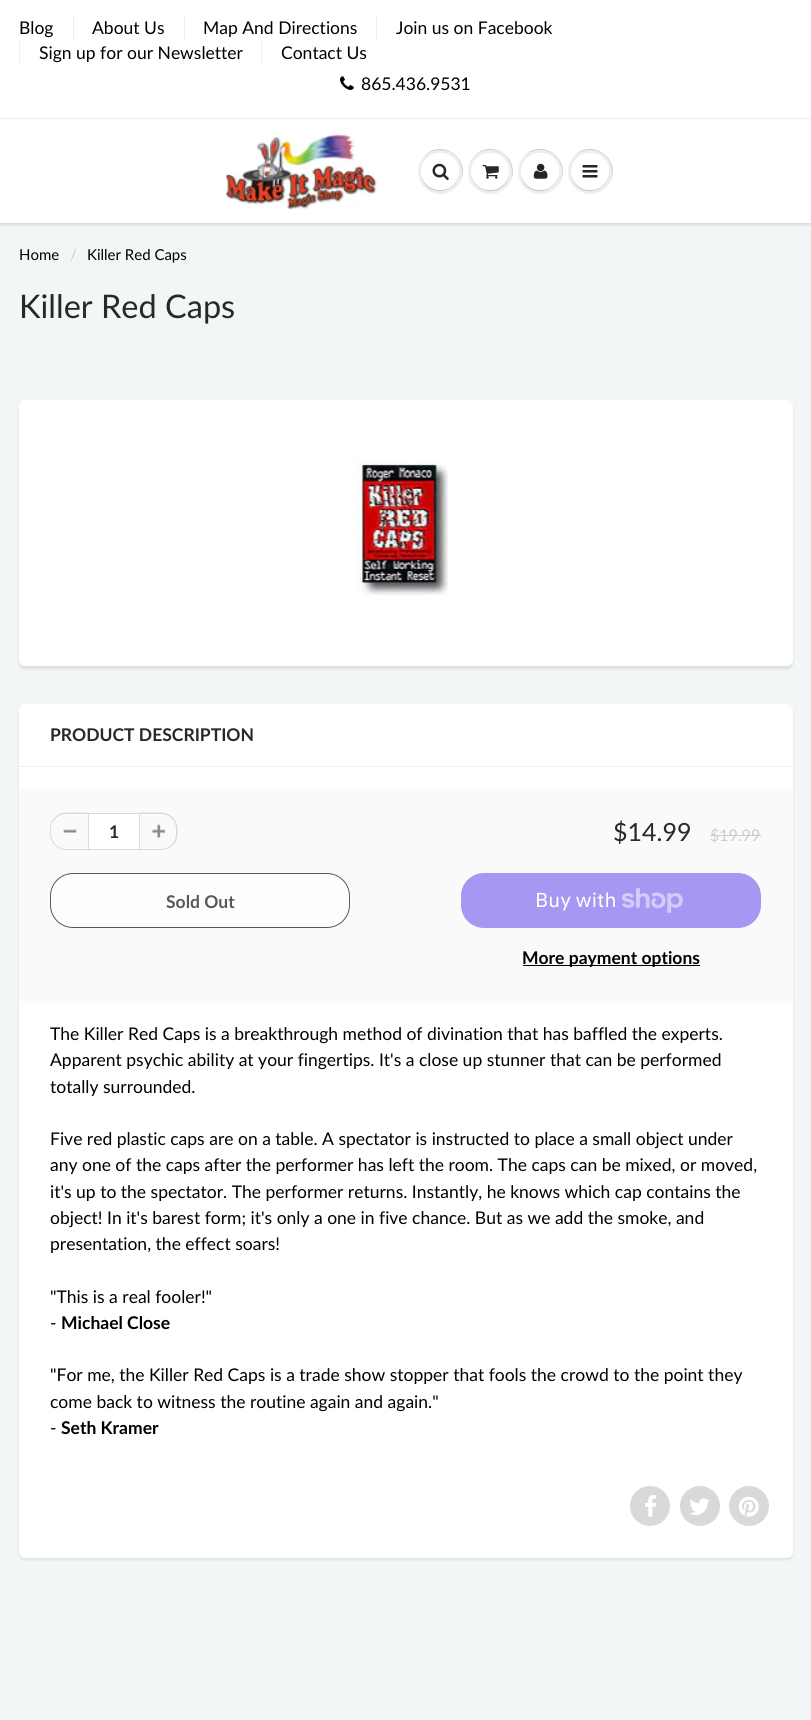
#include <cairo.h>
#include <math.h>
#include <stddef.h>


static void set_color(cairo_t *cr, unsigned color) {
    cairo_set_source_rgb(cr, (color >> 16) / 255.0, (color >> 8 & 255) / 255.0, (color & 255) / 255.0);
}

static void draw_text(cairo_t *cr, double x, double y, const char *s, const char *family, double size, int italic, int bold, unsigned color) {
    cairo_select_font_face(cr, family, italic ? CAIRO_FONT_SLANT_ITALIC : CAIRO_FONT_SLANT_NORMAL,
        bold ? CAIRO_FONT_WEIGHT_BOLD : CAIRO_FONT_WEIGHT_NORMAL);
    cairo_set_font_size(cr, size);
    set_color(cr, color);
    cairo_move_to(cr, x, y);
    cairo_show_text(cr, s);
}

static void fill_rect(cairo_t *cr, double x, double y, double w, double h, unsigned color) {
    set_color(cr, color);
    cairo_rectangle(cr, x, y, w, h);
    cairo_fill(cr);
}

static void rounded_rect(cairo_t *cr, double x, double y, double w, double h, double r) {
    cairo_new_sub_path(cr);
    cairo_arc(cr, x + w - r, y + h - r, r, 0, M_PI / 2);
    cairo_arc(cr, x + r, y + h - r, r, M_PI / 2, M_PI);
    cairo_arc(cr, x + r, y + r, r, M_PI, 1.5 * M_PI);
    cairo_arc(cr, x + w - r, y + r, r, 1.5 * M_PI, 2 * M_PI);
    cairo_close_path(cr);
}

static void draw_shadow(cairo_t *cr, double x, double y, double w, double h, double r, double blur, double alpha) {
    cairo_push_group_with_content(cr, CAIRO_CONTENT_ALPHA);
    cairo_set_operator(cr, CAIRO_OPERATOR_SOURCE);
    for (int i = 15; i >= -15 && fmin(w, h) + blur * i / 3 > 0; i -= 2) {
        double e = blur * i / 6;
        cairo_set_source_rgba(cr, 0, 0, 0, alpha * erfc((i - 1) / 8.5) / 2);
        rounded_rect(cr, x - e, y - e, w + 2 * e, h + 2 * e, fmax(0, fmin(r + e + blur * .6, fmin(w, h) / 2 + e)));
        cairo_fill(cr);
    }
    cairo_pattern_t *soft = cairo_pop_group(cr);
    cairo_mask(cr, soft);
    cairo_pattern_destroy(soft);
}

static void draw_image(cairo_t *cr, const char *path, double x, double y, double w, double h) {
    cairo_surface_t *image = cairo_image_surface_create_from_png(path);
    cairo_save(cr);
    cairo_set_source_surface(cr, image, x, y);
    cairo_rectangle(cr, x, y, w, h);
    cairo_fill(cr);
    cairo_restore(cr);
    cairo_surface_destroy(image);
}

int main(void) {
    cairo_surface_t *surface = cairo_image_surface_create(CAIRO_FORMAT_RGB24, 811, 1720);
    cairo_t *cr = cairo_create(surface);
    cairo_font_options_t *options = cairo_font_options_create();
    cairo_font_options_set_hint_metrics(options, CAIRO_HINT_METRICS_OFF);
    cairo_font_options_set_hint_style(options, CAIRO_HINT_STYLE_NONE);
    cairo_set_font_options(cr, options);
    cairo_set_miter_limit(cr, 4);
    set_color(cr, 0xFFFFFF);
    cairo_paint(cr);
    draw_text(cr, 19, 34, "Blog", "Lato", 17.5, 0, 0, 0x000000);
    fill_rect(cr, 73, 15, 1, 25, 0xECEFEF);
    draw_text(cr, 92, 34, "About Us", "Lato", 17.5, 0, 0, 0x000000);
    fill_rect(cr, 184, 15, 1, 25, 0xECEFEF);
    draw_text(cr, 203, 34, "Map And Directions", "Lato", 17.5, 0, 0, 0x000000);
    fill_rect(cr, 376, 15, 1, 25, 0xECEFEF);
    draw_text(cr, 396, 34, "Join us on Facebook", "Lato", 17.5, 0, 0, 0x000000);
    fill_rect(cr, 19, 40, 1, 25, 0xECEFEF);
    draw_text(cr, 39, 59, "Sign up for our Newsletter", "Lato", 17.5, 0, 0, 0x000000);
    fill_rect(cr, 261, 40, 1, 25, 0xECEFEF);
    draw_text(cr, 281, 59, "Contact Us", "Lato", 17.5, 0, 0, 0x000000);
    draw_image(cr, "assets/img1.png", 340, 76, 14, 14);
    draw_text(cr, 361, 90, "865.436.9531", "Lato", 17.5, 0, 0, 0x000000);
    fill_rect(cr, 0, 223, 811, 1497, 0xF3F6F6);
    set_color(cr, 0x0B191C);
    draw_shadow(cr, 0, 120, 811, 105, 0, 1, 0.12);
    fill_rect(cr, 0, 119, 811, 104, 0xFFFFFF);
    fill_rect(cr, 0, 118, 811, 1, 0xECEFEF);
    draw_image(cr, "assets/img2.png", 225, 132, 152, 77);
    set_color(cr, 0xEDEFEF);
    cairo_arc(cr, 440.5, 171.5, 22.5, 0, 2 * M_PI);
    cairo_fill(cr);
    set_color(cr, 0xC9CBCB);
    cairo_new_path(cr);
    cairo_move_to(cr, 440, 150);
    cairo_curve_to(cr, 458, 150, 465, 167, 461, 180);
    cairo_curve_to(cr, 470, 158, 442, 139, 425, 155);
    cairo_curve_to(cr, 429, 152, 434, 150, 440, 150);
    cairo_close_path(cr);
    cairo_fill(cr);
    cairo_new_path(cr);
    cairo_move_to(cr, 421.5, 168.5);
    cairo_curve_to(cr, 420.5, 173, 421.5, 178.5, 424, 183);
    cairo_curve_to(cr, 435.5, 200, 463, 188.5, 458.5, 168.5);
    cairo_curve_to(cr, 461.5, 187.5, 435.5, 198.5, 424.5, 181.5);
    cairo_curve_to(cr, 422, 178, 420.5, 173, 421.5, 168.5);
    cairo_close_path(cr);
    cairo_fill(cr);
    set_color(cr, 0xFFFFFF);
    rounded_rect(cr, 421, 153, 38, 37, 18.5);
    cairo_fill(cr);
    cairo_new_path(cr);
    cairo_move_to(cr, 440, 154);
    cairo_curve_to(cr, 454, 154, 460, 166, 458, 176);
    cairo_curve_to(cr, 460, 171, 459, 165, 456, 161);
    cairo_curve_to(cr, 444, 144, 417, 156, 422, 176);
    cairo_curve_to(cr, 420, 166, 426, 154, 440, 154);
    cairo_close_path(cr);
    cairo_fill(cr);
    draw_image(cr, "assets/img3.png", 432, 163, 17, 17);
    set_color(cr, 0xEDEFEF);
    cairo_arc(cr, 490.5, 171.5, 22.5, 0, 2 * M_PI);
    cairo_fill(cr);
    set_color(cr, 0xC9CBCB);
    cairo_new_path(cr);
    cairo_move_to(cr, 490, 150);
    cairo_curve_to(cr, 508, 150, 515, 167, 511, 180);
    cairo_curve_to(cr, 520, 158, 492, 139, 475, 155);
    cairo_curve_to(cr, 479, 152, 484, 150, 490, 150);
    cairo_close_path(cr);
    cairo_fill(cr);
    cairo_new_path(cr);
    cairo_move_to(cr, 471.5, 168.5);
    cairo_curve_to(cr, 467, 188.5, 494.5, 200, 506, 183);
    cairo_curve_to(cr, 508.5, 178.5, 509.5, 173, 508.5, 168.5);
    cairo_curve_to(cr, 511.5, 187.5, 485.5, 198.5, 474.5, 181.5);
    cairo_curve_to(cr, 472, 178, 470.5, 173, 471.5, 168.5);
    cairo_close_path(cr);
    cairo_fill(cr);
    set_color(cr, 0xFFFFFF);
    rounded_rect(cr, 471, 153, 38, 37, 18.5);
    cairo_fill(cr);
    cairo_new_path(cr);
    cairo_move_to(cr, 490, 154);
    cairo_curve_to(cr, 504, 154, 510, 166, 508, 176);
    cairo_curve_to(cr, 510, 171, 509, 165, 506, 161);
    cairo_curve_to(cr, 494, 144, 467, 156, 472, 176);
    cairo_curve_to(cr, 470, 166, 476, 154, 490, 154);
    cairo_close_path(cr);
    cairo_fill(cr);
    draw_image(cr, "assets/img4.png", 482, 165, 17, 14);
    set_color(cr, 0xEDEFEF);
    cairo_arc(cr, 540.5, 171.5, 22.5, 0, 2 * M_PI);
    cairo_fill(cr);
    set_color(cr, 0xC9CBCB);
    cairo_new_path(cr);
    cairo_move_to(cr, 540, 150);
    cairo_curve_to(cr, 558, 150, 565, 167, 561, 180);
    cairo_curve_to(cr, 570, 158, 542, 139, 525, 155);
    cairo_curve_to(cr, 529, 152, 534, 150, 540, 150);
    cairo_close_path(cr);
    cairo_fill(cr);
    cairo_new_path(cr);
    cairo_move_to(cr, 521.5, 168.5);
    cairo_curve_to(cr, 520.5, 173, 521.5, 178.5, 524, 183);
    cairo_curve_to(cr, 535.5, 200, 563, 188.5, 558.5, 168.5);
    cairo_curve_to(cr, 559.5, 173, 558, 178, 555.5, 181.5);
    cairo_curve_to(cr, 544.5, 198.5, 518.5, 187.5, 521.5, 168.5);
    cairo_close_path(cr);
    cairo_fill(cr);
    set_color(cr, 0xFFFFFF);
    rounded_rect(cr, 521, 153, 38, 37, 18.5);
    cairo_fill(cr);
    cairo_new_path(cr);
    cairo_move_to(cr, 540, 154);
    cairo_curve_to(cr, 554, 154, 560, 166, 558, 176);
    cairo_curve_to(cr, 560, 171, 559, 165, 556, 161);
    cairo_curve_to(cr, 544, 144, 517, 156, 522, 176);
    cairo_curve_to(cr, 520, 166, 526, 154, 540, 154);
    cairo_close_path(cr);
    cairo_fill(cr);
    draw_image(cr, "assets/img5.png", 533, 163, 15, 16);
    set_color(cr, 0xEDEFEF);
    cairo_arc(cr, 590.5, 171.5, 22.5, 0, 2 * M_PI);
    cairo_fill(cr);
    set_color(cr, 0xC9CBCB);
    cairo_new_path(cr);
    cairo_move_to(cr, 590, 150);
    cairo_curve_to(cr, 608, 150, 615, 167, 611, 180);
    cairo_curve_to(cr, 620, 158, 592, 139, 575, 155);
    cairo_curve_to(cr, 579, 152, 584, 150, 590, 150);
    cairo_close_path(cr);
    cairo_fill(cr);
    cairo_new_path(cr);
    cairo_move_to(cr, 571.5, 168.5);
    cairo_curve_to(cr, 570.5, 173, 571.5, 178.5, 574, 183);
    cairo_curve_to(cr, 585.5, 200, 613, 188.5, 608.5, 168.5);
    cairo_curve_to(cr, 609.5, 173, 608, 178, 605.5, 181.5);
    cairo_curve_to(cr, 594.5, 198.5, 568.5, 187.5, 571.5, 168.5);
    cairo_close_path(cr);
    cairo_fill(cr);
    set_color(cr, 0xFFFFFF);
    rounded_rect(cr, 571, 153, 38, 37, 18.5);
    cairo_fill(cr);
    cairo_new_path(cr);
    cairo_move_to(cr, 590, 154);
    cairo_curve_to(cr, 604, 154, 610, 166, 608, 176);
    cairo_curve_to(cr, 610, 171, 609, 165, 606, 161);
    cairo_curve_to(cr, 594, 144, 567, 156, 572, 176);
    cairo_curve_to(cr, 570, 166, 576, 154, 590, 154);
    cairo_close_path(cr);
    cairo_fill(cr);
    draw_image(cr, "assets/img6.png", 582, 165, 16, 13);
    draw_text(cr, 19, 260, "Home", "Lato", 15, 0, 0, 0x000000);
    draw_text(cr, 70, 260, "/", "Lato", 15, 0, 0, 0xCCCCCC);
    draw_text(cr, 87, 260, "Killer Red Caps", "Lato", 15, 0, 0, 0x000000);
    draw_text(cr, 19, 318, "Killer Red Caps", "Lato", 32.5, 0, 0, 0x282827);
    set_color(cr, 0x0B191C);
    draw_shadow(cr, 19, 403, 774, 266, 6, 1, 0.1);
    set_color(cr, 0xFFFFFF);
    rounded_rect(cr, 19, 400, 774, 266, 6);
    cairo_fill(cr);
    draw_image(cr, "assets/img7.png", 356, 460, 93, 135);
    set_color(cr, 0x0B191C);
    draw_shadow(cr, 19, 706, 774, 854, 6, 1, 0.1);
    set_color(cr, 0xFFFFFF);
    rounded_rect(cr, 19, 704, 774, 854, 6);
    cairo_fill(cr);
    fill_rect(cr, 19, 766, 774, 1, 0xEFEFEF);
    draw_text(cr, 50, 741, "PRODUCT DESCRIPTION", "Lato", 17.5, 0, 1, 0x282827);
    fill_rect(cr, 19, 788, 774, 213, 0xFAFAFA);
    draw_image(cr, "assets/img8.png", 63, 829, 14, 4);
    set_color(cr, 0xD7DBDB);
    cairo_set_fill_rule(cr, CAIRO_FILL_RULE_EVEN_ODD);
    cairo_new_path(cr);
    cairo_move_to(cr, 66, 812.5);
    cairo_line_to(cr, 87.5, 812.5);
    cairo_line_to(cr, 87.5, 850);
    cairo_line_to(cr, 66, 850);
    cairo_curve_to(cr, 57.5, 850, 50, 842.5, 50, 834);
    cairo_line_to(cr, 50, 829);
    cairo_curve_to(cr, 50, 820, 57.5, 812.5, 66, 812.5);
    cairo_close_path(cr);
    cairo_move_to(cr, 66, 814);
    cairo_line_to(cr, 87.5, 814);
    cairo_line_to(cr, 87.5, 849);
    cairo_line_to(cr, 66, 849);
    cairo_curve_to(cr, 58, 849, 51, 842, 51, 834);
    cairo_line_to(cr, 51, 829);
    cairo_curve_to(cr, 51, 820.5, 58, 814, 66, 814);
    cairo_close_path(cr);
    cairo_fill(cr);
    set_color(cr, 0xFFFFFF);
    cairo_rectangle(cr, 88.5, 813.5, 51, 36);
    cairo_fill_preserve(cr);
    set_color(cr, 0xD7DBDB);
    cairo_set_line_width(cr, 1);
    cairo_stroke(cr);
    draw_text(cr, 109, 838, "1", "Lato", 17.5, 0, 1, 0x282827);
    draw_image(cr, "assets/img9.png", 152, 824, 13, 14);
    set_color(cr, 0xD7DBDB);
    cairo_new_path(cr);
    cairo_move_to(cr, 140, 812.5);
    cairo_line_to(cr, 161, 812.5);
    cairo_curve_to(cr, 170, 812.5, 177.5, 820, 177.5, 829);
    cairo_line_to(cr, 177.5, 834);
    cairo_curve_to(cr, 177.5, 842.5, 170, 850, 161, 850);
    cairo_line_to(cr, 140, 850);
    cairo_close_path(cr);
    cairo_move_to(cr, 140, 814);
    cairo_line_to(cr, 161, 814);
    cairo_curve_to(cr, 169.5, 814, 176, 820.5, 176, 829);
    cairo_line_to(cr, 176, 834);
    cairo_curve_to(cr, 176, 842, 169.5, 849, 161, 849);
    cairo_line_to(cr, 140, 849);
    cairo_close_path(cr);
    cairo_fill(cr);
    draw_text(cr, 613, 841, "$14.99", "Lato", 25, 0, 0, 0x282827);
    draw_text(cr, 710, 841, "$19.99", "Lato", 16, 0, 0, 0xCCCCCC);
    fill_rect(cr, 710, 835, 51, 1, 0xCCCCCC);
    set_color(cr, 0xFDFDFD);
    rounded_rect(cr, 50.5, 873.5, 299, 54, 22.5);
    cairo_fill_preserve(cr);
    set_color(cr, 0x585858);
    cairo_stroke(cr);
    draw_text(cr, 166, 908, "Sold Out", "Lato", 17.5, 0, 1, 0x585858);
    set_color(cr, 0xA797F3);
    rounded_rect(cr, 461, 873, 300, 55, 23);
    cairo_fill(cr);
    draw_text(cr, 535, 907, "Buy with", "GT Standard", 20, 0, 0, 0xFDFDFD);
    draw_image(cr, "assets/img10.png", 622, 888, 61, 25);
    fill_rect(cr, 523, 965, 177, 1, 0x000000);
    draw_text(cr, 522, 964, "More payment options", "Lato", 17.5, 0, 1, 0x000000);
    draw_text(cr, 50, 1040, "The Killer Red Caps is a breakthrough method of divination that has baffled the experts.", "Lato", 17.5, 0, 0, 0x000000);
    draw_text(cr, 50, 1066, "Apparent psychic ability at your fingertips. It's a close up stunner that can be performed", "Lato", 17.5, 0, 0, 0x000000);
    draw_text(cr, 50, 1093, "totally surrounded.", "Lato", 17.5, 0, 0, 0x000000);
    draw_text(cr, 50, 1145, "Five red plastic caps are on a table. A spectator is instructed to place a small object under", "Lato", 17.5, 0, 0, 0x000000);
    draw_text(cr, 50, 1171, "any one of the caps after the performer has left the room. The caps can be mixed, or moved,", "Lato", 17.5, 0, 0, 0x000000);
    draw_text(cr, 50, 1198, "it's up to the spectator. The performer returns. Instantly, he knows which cap contains the", "Lato", 17.5, 0, 0, 0x000000);
    draw_text(cr, 50, 1224, "object! In it's barest form; it's only a one in five chance. But as we add the smoke, and", "Lato", 17.5, 0, 0, 0x000000);
    draw_text(cr, 50, 1250, "presentation, the effect soars!", "Lato", 17.5, 0, 0, 0x000000);
    draw_text(cr, 50, 1303, "\"This is a real fooler!\"", "Lato", 17.5, 0, 0, 0x000000);
    draw_text(cr, 50, 1329, "-", "Lato", 17.5, 0, 0, 0x000000);
    draw_text(cr, 61, 1329, "Michael Close", "Lato", 17.5, 0, 1, 0x000000);
    draw_text(cr, 50, 1381, "\"For me, the Killer Red Caps is a trade show stopper that fools the crowd to the point they", "Lato", 17.5, 0, 0, 0x000000);
    draw_text(cr, 50, 1408, "come back to witness the routine again and again.\"", "Lato", 17.5, 0, 0, 0x000000);
    draw_text(cr, 50, 1434, "-", "Lato", 17.5, 0, 0, 0x000000);
    draw_text(cr, 61, 1434, "Seth Kramer", "Lato", 17.5, 0, 1, 0x000000);
    set_color(cr, 0xD9D9D9);
    cairo_new_path(cr);
    cairo_arc(cr, 650, 1506, 20, 0, 2 * M_PI);
    cairo_fill(cr);
    draw_image(cr, "assets/img11.png", 645, 1495, 12, 22);
    cairo_arc(cr, 700, 1506, 20, 0, 2 * M_PI);
    cairo_fill(cr);
    draw_image(cr, "assets/img12.png", 689, 1498, 21, 17);
    cairo_arc(cr, 749, 1506, 20, 0, 2 * M_PI);
    cairo_fill(cr);
    draw_image(cr, "assets/img13.png", 738, 1496, 21, 21);
    cairo_surface_write_to_png(surface, "output.png");
    cairo_font_options_destroy(options);
    cairo_destroy(cr);
    cairo_surface_destroy(surface);
    return 0;
}
